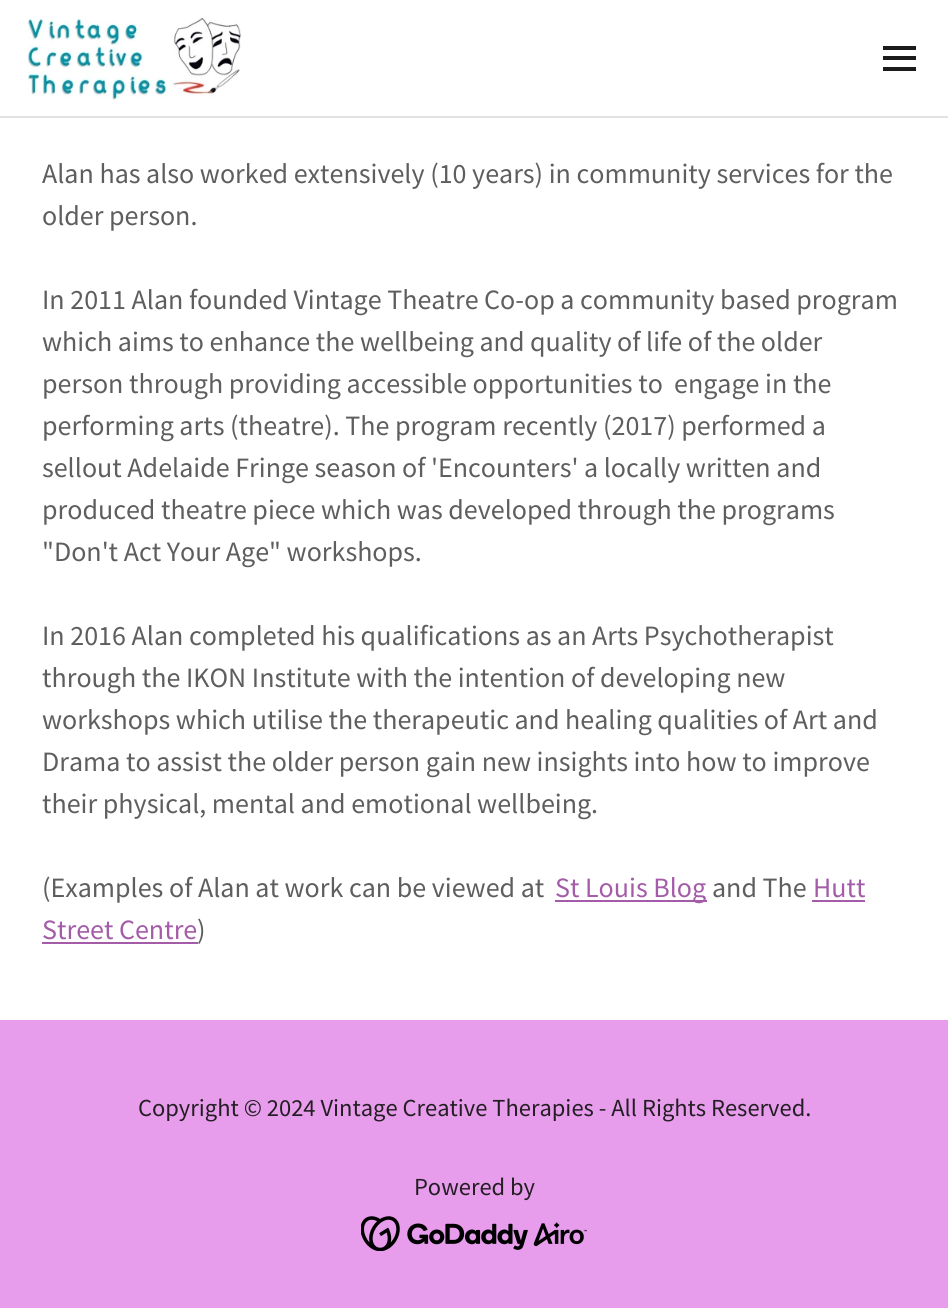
#include <cairo.h>
#include <math.h>
#include <stddef.h>


static void set_color(cairo_t *cr, unsigned color) {
    cairo_set_source_rgb(cr, (color >> 16) / 255.0, (color >> 8 & 255) / 255.0, (color & 255) / 255.0);
}

static void draw_text(cairo_t *cr, double x, double y, const char *s, const char *family, double size, int italic, int bold, unsigned color) {
    cairo_select_font_face(cr, family, italic ? CAIRO_FONT_SLANT_ITALIC : CAIRO_FONT_SLANT_NORMAL,
        bold ? CAIRO_FONT_WEIGHT_BOLD : CAIRO_FONT_WEIGHT_NORMAL);
    cairo_set_font_size(cr, size);
    set_color(cr, color);
    cairo_move_to(cr, x, y);
    cairo_show_text(cr, s);
}

static void fill_rect(cairo_t *cr, double x, double y, double w, double h, unsigned color) {
    set_color(cr, color);
    cairo_rectangle(cr, x, y, w, h);
    cairo_fill(cr);
}

static void draw_image(cairo_t *cr, const char *path, double x, double y, double w, double h) {
    cairo_surface_t *image = cairo_image_surface_create_from_png(path);
    cairo_save(cr);
    cairo_set_source_surface(cr, image, x, y);
    cairo_rectangle(cr, x, y, w, h);
    cairo_fill(cr);
    cairo_restore(cr);
    cairo_surface_destroy(image);
}

int main(void) {
    cairo_surface_t *surface = cairo_image_surface_create(CAIRO_FORMAT_RGB24, 948, 1308);
    cairo_t *cr = cairo_create(surface);
    cairo_font_options_t *options = cairo_font_options_create();
    cairo_font_options_set_hint_metrics(options, CAIRO_HINT_METRICS_OFF);
    cairo_font_options_set_hint_style(options, CAIRO_HINT_STYLE_NONE);
    cairo_set_font_options(cr, options);
    cairo_set_miter_limit(cr, 4);
    set_color(cr, 0xE79DEB);
    cairo_paint(cr);
    fill_rect(cr, 0, 0, 948, 116, 0xFFFFFF);
    draw_image(cr, "assets/img1.png", 28, 14, 213, 86);
    fill_rect(cr, 883, 46, 33, 4, 0x1B1B1B);
    fill_rect(cr, 883, 56, 33, 4, 0x1B1B1B);
    fill_rect(cr, 883, 67, 33, 4, 0x1B1B1B);
    fill_rect(cr, 0, 116, 948, 2, 0xE2E2E2);
    fill_rect(cr, 0, 118, 948, 902, 0xFFFFFF);
    draw_text(cr, 42, 183, "Alan has also worked extensively (10 years) in community services for the", "Source Sans Pro", 28, 0, 0, 0x5E5E5E);
    draw_text(cr, 42, 225, "older person.", "Source Sans Pro", 28, 0, 0, 0x5E5E5E);
    draw_text(cr, 42, 309, "In 2011 Alan founded Vintage Theatre Co-op a community based program", "Source Sans Pro", 28, 0, 0, 0x5E5E5E);
    draw_text(cr, 42, 351, "which aims to enhance the wellbeing and quality of life of the older", "Source Sans Pro", 28, 0, 0, 0x5E5E5E);
    draw_text(cr, 42, 393, "person through providing accessible opportunities to  engage in the", "Source Sans Pro", 28, 0, 0, 0x5E5E5E);
    draw_text(cr, 42, 435, "performing arts (theatre). The program recently (2017) performed a", "Source Sans Pro", 28, 0, 0, 0x5E5E5E);
    draw_text(cr, 42, 477, "sellout Adelaide Fringe season of 'Encounters' a locally written and", "Source Sans Pro", 28, 0, 0, 0x5E5E5E);
    draw_text(cr, 42, 519, "produced theatre piece which was developed through the programs", "Source Sans Pro", 28, 0, 0, 0x5E5E5E);
    draw_text(cr, 42, 561, "\"Don't Act Your Age\" workshops.", "Source Sans Pro", 28, 0, 0, 0x5E5E5E);
    draw_text(cr, 42, 645, "In 2016 Alan completed his qualifications as an Arts Psychotherapist", "Source Sans Pro", 28, 0, 0, 0x5E5E5E);
    draw_text(cr, 42, 687, "through the IKON Institute with the intention of developing new", "Source Sans Pro", 28, 0, 0, 0x5E5E5E);
    draw_text(cr, 42, 729, "workshops which utilise the therapeutic and healing qualities of Art and", "Source Sans Pro", 28, 0, 0, 0x5E5E5E);
    draw_text(cr, 42, 771, "Drama to assist the older person gain new insights into how to improve", "Source Sans Pro", 28, 0, 0, 0x5E5E5E);
    draw_text(cr, 42, 813, "their physical, mental and emotional wellbeing.", "Source Sans Pro", 28, 0, 0, 0x5E5E5E);
    draw_text(cr, 42, 897, "(Examples of Alan at work can be viewed at", "Source Sans Pro", 28, 0, 0, 0x5E5E5E);
    fill_rect(cr, 555, 900, 152, 2, 0xA45BA8);
    draw_text(cr, 555, 897, "St Louis Blog", "Source Sans Pro", 28, 0, 0, 0xA45BA8);
    draw_text(cr, 712, 897, "and The", "Source Sans Pro", 28, 0, 0, 0x5E5E5E);
    draw_text(cr, 813, 897, "Hutt", "Source Sans Pro", 28, 0, 0, 0xA45BA8);
    fill_rect(cr, 812, 900, 53, 2, 0xA45BA8);
    draw_text(cr, 42, 939, "Street Centre", "Source Sans Pro", 28, 0, 0, 0xA45BA8);
    draw_text(cr, 197, 939, ")", "Source Sans Pro", 28, 0, 0, 0x5E5E5E);
    fill_rect(cr, 42, 942, 156, 2, 0xA45BA8);
    draw_text(cr, 138, 1116, "Copyright © 2024 Vintage Creative Therapies - All Rights Reserved.", "Source Sans Pro", 24.5, 0, 0, 0x241E24);
    draw_text(cr, 414, 1195, "Powered by", "Source Sans Pro", 24.5, 0, 0, 0x241E24);
    draw_image(cr, "assets/img2.png", 361, 1216, 226, 35);
    cairo_surface_write_to_png(surface, "output.png");
    cairo_font_options_destroy(options);
    cairo_destroy(cr);
    cairo_surface_destroy(surface);
    return 0;
}
